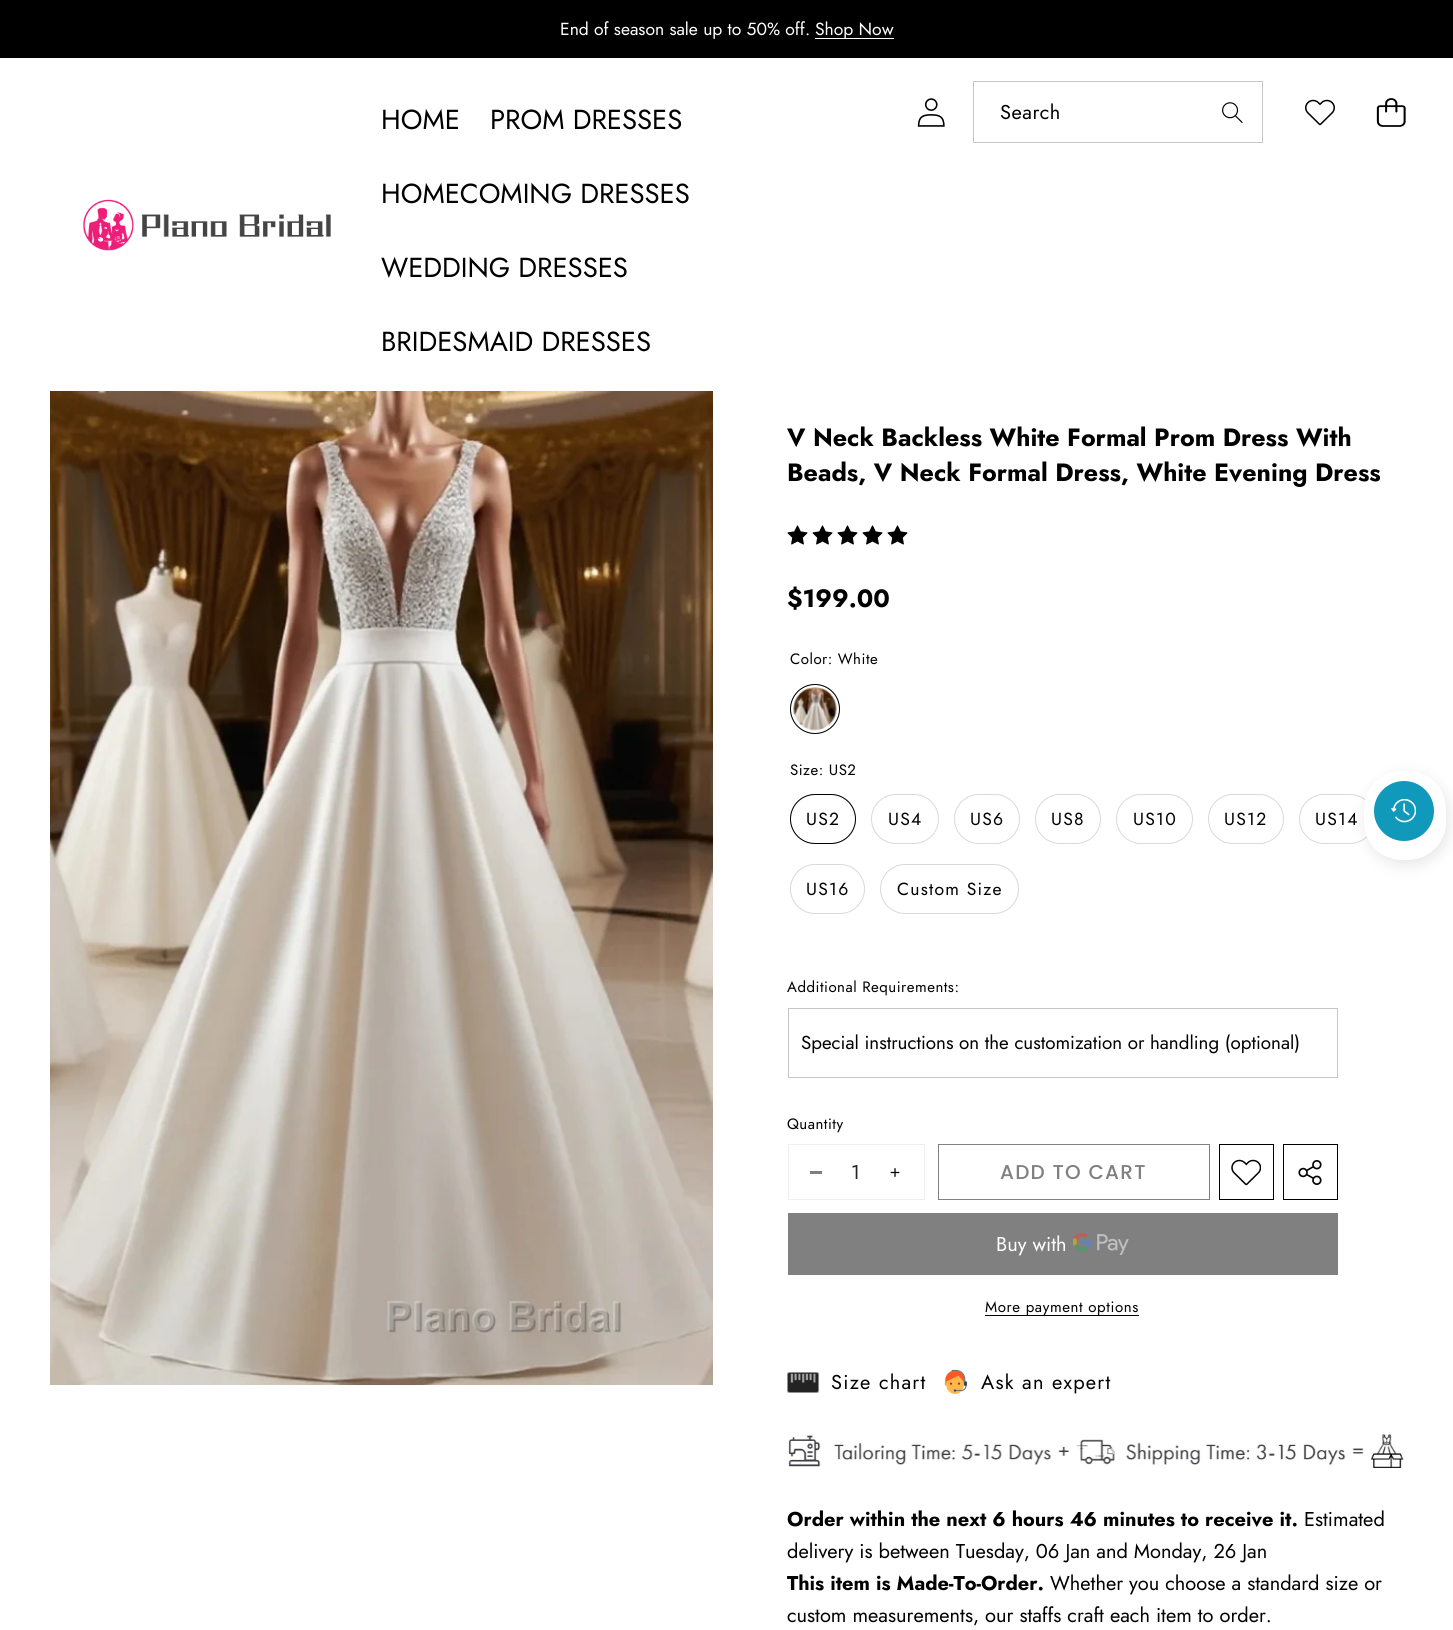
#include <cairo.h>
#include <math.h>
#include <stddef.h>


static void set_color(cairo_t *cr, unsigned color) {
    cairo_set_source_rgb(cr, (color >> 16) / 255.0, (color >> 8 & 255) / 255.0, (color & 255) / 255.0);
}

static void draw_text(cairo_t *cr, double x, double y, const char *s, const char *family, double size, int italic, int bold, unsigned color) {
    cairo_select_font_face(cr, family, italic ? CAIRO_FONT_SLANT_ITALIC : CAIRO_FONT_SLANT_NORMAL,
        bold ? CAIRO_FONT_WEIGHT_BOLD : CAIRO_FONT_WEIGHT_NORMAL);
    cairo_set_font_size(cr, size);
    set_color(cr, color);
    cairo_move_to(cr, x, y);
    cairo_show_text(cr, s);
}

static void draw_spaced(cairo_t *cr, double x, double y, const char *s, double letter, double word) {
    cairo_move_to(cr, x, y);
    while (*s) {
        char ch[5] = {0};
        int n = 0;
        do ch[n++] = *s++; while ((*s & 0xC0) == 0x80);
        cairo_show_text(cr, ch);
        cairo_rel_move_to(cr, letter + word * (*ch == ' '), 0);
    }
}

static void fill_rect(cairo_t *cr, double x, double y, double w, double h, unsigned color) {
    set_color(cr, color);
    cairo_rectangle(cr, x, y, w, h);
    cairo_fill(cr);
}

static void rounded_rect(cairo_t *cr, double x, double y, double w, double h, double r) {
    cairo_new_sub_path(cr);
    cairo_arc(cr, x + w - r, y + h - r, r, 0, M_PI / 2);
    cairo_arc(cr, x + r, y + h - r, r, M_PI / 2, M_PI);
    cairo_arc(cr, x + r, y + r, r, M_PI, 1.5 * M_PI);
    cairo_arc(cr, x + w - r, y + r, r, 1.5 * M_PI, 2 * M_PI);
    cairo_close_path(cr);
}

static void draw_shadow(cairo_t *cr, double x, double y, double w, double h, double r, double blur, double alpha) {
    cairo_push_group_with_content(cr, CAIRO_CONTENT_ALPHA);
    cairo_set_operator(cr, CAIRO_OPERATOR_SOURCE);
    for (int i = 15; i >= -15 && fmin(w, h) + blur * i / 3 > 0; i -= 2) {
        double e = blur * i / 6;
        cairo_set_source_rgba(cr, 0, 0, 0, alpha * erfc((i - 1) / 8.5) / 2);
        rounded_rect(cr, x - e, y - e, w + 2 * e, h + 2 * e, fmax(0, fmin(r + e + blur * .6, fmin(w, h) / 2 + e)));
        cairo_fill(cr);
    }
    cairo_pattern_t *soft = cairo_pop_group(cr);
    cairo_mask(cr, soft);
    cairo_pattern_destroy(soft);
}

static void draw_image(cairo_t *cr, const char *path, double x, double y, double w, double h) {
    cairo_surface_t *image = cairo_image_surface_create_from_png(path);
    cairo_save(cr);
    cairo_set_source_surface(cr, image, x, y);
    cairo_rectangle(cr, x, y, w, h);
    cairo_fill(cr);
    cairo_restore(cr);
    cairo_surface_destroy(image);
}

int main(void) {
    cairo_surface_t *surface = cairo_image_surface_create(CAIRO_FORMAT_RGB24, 1453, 1630);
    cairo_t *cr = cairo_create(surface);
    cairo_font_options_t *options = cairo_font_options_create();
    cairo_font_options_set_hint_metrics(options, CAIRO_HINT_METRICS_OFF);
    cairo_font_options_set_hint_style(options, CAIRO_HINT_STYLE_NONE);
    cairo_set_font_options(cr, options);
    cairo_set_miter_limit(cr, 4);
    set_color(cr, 0xFFFFFF);
    cairo_paint(cr);
    fill_rect(cr, 0, 0, 1453, 58, 0x000000);
    draw_text(cr, 560, 35, "End of season sale up to 50% off.", "Jost", 17.5, 0, 0, 0xFFFFFF);
    fill_rect(cr, 815, 38, 79, 1, 0xFFFFFF);
    draw_text(cr, 815, 35, "Shop Now", "Jost", 17.5, 0, 0, 0xFFFFFF);
    draw_image(cr, "assets/img1.png", 83, 199, 248, 52);
    draw_text(cr, 381, 129, "HOME", "Jost", 27.5, 0, 0, 0x000000);
    draw_text(cr, 490, 129, "PROM DRESSES", "Jost", 27.5, 0, 0, 0x000000);
    draw_text(cr, 381, 203, "HOMECOMING DRESSES", "Jost", 27.5, 0, 0, 0x000000);
    draw_text(cr, 381, 277, "WEDDING DRESSES", "Jost", 27.5, 0, 0, 0x000000);
    draw_text(cr, 381, 351, "BRIDESMAID DRESSES", "Jost", 27.5, 0, 0, 0x000000);
    draw_image(cr, "assets/img2.png", 917, 98, 28, 29);
    cairo_rectangle(cr, 973.5, 81.5, 289, 61);
    set_color(cr, 0xC6C6C6);
    cairo_set_line_width(cr, 1);
    cairo_stroke(cr);
    cairo_set_font_size(cr, 20);
    set_color(cr, 0x000000);
    draw_spaced(cr, 1000, 119, "Search", 0.5, 0);
    draw_image(cr, "assets/img3.png", 1222, 102, 21, 21);
    draw_image(cr, "assets/img4.png", 1305, 99, 30, 27);
    draw_image(cr, "assets/img5.png", 1376, 98, 30, 29);
    draw_image(cr, "assets/img6.png", 50, 391, 663, 994);
    draw_text(cr, 787, 446, "V Neck Backless White Formal Prom Dress With", "Jost", 25, 0, 1, 0x000000);
    draw_text(cr, 787, 481, "Beads, V Neck Formal Dress, White Evening Dress", "Jost", 25, 0, 1, 0x000000);
    draw_image(cr, "assets/img7.png", 787, 525, 21, 20);
    draw_image(cr, "assets/img7.png", 812, 525, 21, 20);
    draw_image(cr, "assets/img7.png", 837, 525, 21, 20);
    draw_image(cr, "assets/img7.png", 862, 525, 21, 20);
    draw_image(cr, "assets/img7.png", 887, 525, 21, 20);
    draw_text(cr, 787, 607, "$199.00", "Jost", 25, 0, 1, 0x000000);
    cairo_select_font_face(cr, "Jost", CAIRO_FONT_SLANT_NORMAL, CAIRO_FONT_WEIGHT_NORMAL);
    cairo_set_font_size(cr, 15);
    draw_spaced(cr, 790, 664, "Color: White", 0.5, 0);
    cairo_new_path(cr);
    cairo_arc(cr, 815, 709, 24.5, 0, 2 * M_PI);
    set_color(cr, 0xD9D9D9);
    cairo_stroke(cr);
    draw_image(cr, "assets/img8.png", 793, 687, 44, 44);
    cairo_arc(cr, 815, 709, 24.5, 0, 2 * M_PI);
    set_color(cr, 0x000000);
    cairo_stroke(cr);
    draw_spaced(cr, 790, 775, "Size: US2", 0.5, 0);
    rounded_rect(cr, 790.5, 794.5, 65, 49, 24.5);
    set_color(cr, 0xD9D9D9);
    cairo_stroke(cr);
    rounded_rect(cr, 790.5, 794.5, 65, 49, 24.5);
    set_color(cr, 0x000000);
    cairo_stroke(cr);
    cairo_set_font_size(cr, 17.5);
    draw_spaced(cr, 806, 825, "US2", 1.25, 0);
    rounded_rect(cr, 871.5, 794.5, 67, 49, 24.5);
    set_color(cr, 0xD9D9D9);
    cairo_stroke(cr);
    set_color(cr, 0x000000);
    draw_spaced(cr, 888, 825, "US4", 1.25, 0);
    rounded_rect(cr, 954.5, 794.5, 65, 49, 24.5);
    set_color(cr, 0xD9D9D9);
    cairo_stroke(cr);
    set_color(cr, 0x000000);
    draw_spaced(cr, 970, 825, "US6", 1.25, 0);
    rounded_rect(cr, 1035.5, 794.5, 65, 49, 24.5);
    set_color(cr, 0xD9D9D9);
    cairo_stroke(cr);
    set_color(cr, 0x000000);
    draw_spaced(cr, 1051, 825, "US8", 1.25, 0);
    rounded_rect(cr, 1116.5, 794.5, 76, 49, 24.5);
    set_color(cr, 0xD9D9D9);
    cairo_stroke(cr);
    set_color(cr, 0x000000);
    draw_spaced(cr, 1133, 825, "US10", 1.25, 0);
    rounded_rect(cr, 1208.5, 794.5, 75, 49, 24.5);
    set_color(cr, 0xD9D9D9);
    cairo_stroke(cr);
    set_color(cr, 0x000000);
    draw_spaced(cr, 1224, 825, "US12", 1.25, 0);
    rounded_rect(cr, 1299.5, 794.5, 75, 49, 24.5);
    set_color(cr, 0xD9D9D9);
    cairo_stroke(cr);
    set_color(cr, 0x000000);
    draw_spaced(cr, 1315, 825, "US14", 1.25, 0);
    rounded_rect(cr, 790.5, 864.5, 74, 49, 24.5);
    set_color(cr, 0xD9D9D9);
    cairo_stroke(cr);
    set_color(cr, 0x000000);
    draw_spaced(cr, 806, 895, "US16", 1.25, 0);
    rounded_rect(cr, 880.5, 864.5, 138, 49, 24.5);
    set_color(cr, 0xD9D9D9);
    cairo_stroke(cr);
    set_color(cr, 0x000000);
    draw_spaced(cr, 897, 895, "Custom Size", 1.25, 0);
    cairo_set_font_size(cr, 15);
    draw_spaced(cr, 787, 992, "Additional Requirements:", 0.5, 0);
    cairo_rectangle(cr, 788.5, 1008.5, 549, 69);
    set_color(cr, 0xC6C6C6);
    cairo_stroke(cr);
    draw_text(cr, 801, 1049, "Special instructions on the customization or handling (optional)", "Jost", 18.75, 0, 0, 0x000000);
    cairo_set_font_size(cr, 15);
    draw_spaced(cr, 787, 1129, "Quantity", 0.5, 0);
    cairo_rectangle(cr, 788.5, 1144.5, 136, 55);
    set_color(cr, 0xEEEEEE);
    cairo_stroke(cr);
    fill_rect(cr, 810, 1171, 12, 3, 0x808080);
    draw_text(cr, 851, 1179, "1", "Jost", 20, 0, 0, 0x262626);
    draw_image(cr, "assets/img9.png", 890, 1168, 10, 9);
    cairo_rectangle(cr, 938.5, 1144.5, 271, 55);
    set_color(cr, 0x808080);
    cairo_stroke(cr);
    cairo_select_font_face(cr, "Poppins Medium", CAIRO_FONT_SLANT_NORMAL, CAIRO_FONT_WEIGHT_NORMAL);
    draw_spaced(cr, 1000, 1179, "ADD TO CART", 1.25, 0);
    cairo_rectangle(cr, 1219.5, 1144.5, 54, 55);
    set_color(cr, 0x000000);
    cairo_stroke(cr);
    draw_image(cr, "assets/img10.png", 1231, 1159, 30, 27);
    cairo_rectangle(cr, 1283.5, 1144.5, 54, 55);
    cairo_stroke(cr);
    draw_image(cr, "assets/img11.png", 1298, 1160, 24, 25);
    fill_rect(cr, 788, 1213, 550, 62, 0x808080);
    draw_text(cr, 996, 1251, "Buy with", "Jost", 20, 0, 0, 0xFFFFFF);
    draw_image(cr, "assets/img12.png", 1073, 1233, 56, 22);
    fill_rect(cr, 985, 1315, 154, 1, 0x000000);
    cairo_set_font_size(cr, 15);
    draw_spaced(cr, 985, 1312, "More payment options", 0.6, 0);
    draw_image(cr, "assets/img13.png", 787, 1372, 33, 21);
    cairo_set_font_size(cr, 20);
    draw_spaced(cr, 831, 1389, "Size chart", 1.25, 0);
    draw_image(cr, "assets/img14.png", 944, 1369, 24, 25);
    draw_spaced(cr, 981, 1389, "Ask an expert", 1.25, 0);
    draw_image(cr, "assets/img15.png", 788, 1434, 616, 34);
    draw_text(cr, 787, 1526, "Order within the next 6 hours 46 minutes to receive it.", "Jost", 20, 0, 1, 0x000000);
    draw_text(cr, 1304, 1526, "Estimated", "Jost", 20, 0, 0, 0x000000);
    draw_text(cr, 787, 1558, "delivery is between Tuesday, 06 Jan and Monday, 26 Jan", "Jost", 20, 0, 0, 0x000000);
    draw_text(cr, 787, 1590, "This item is Made-To-Order.", "Jost", 20, 0, 1, 0x000000);
    draw_text(cr, 1050, 1590, "Whether you choose a standard size or", "Jost", 20, 0, 0, 0x000000);
    draw_text(cr, 787, 1622, "custom measurements, our staffs craft each item to order.", "Jost", 20, 0, 0, 0x000000);
    set_color(cr, 0x000000);
    draw_shadow(cr, 1366, 776, 83, 89, 38, 7.5, 0.1);
    set_color(cr, 0xFFFFFF);
    rounded_rect(cr, 1364, 771, 82, 89, 38);
    cairo_fill(cr);
    set_color(cr, 0x1199BB);
    cairo_arc(cr, 1404, 811, 30, 0, 2 * M_PI);
    cairo_fill(cr);
    draw_image(cr, "assets/img16.png", 1391, 799, 25, 24);
    cairo_surface_write_to_png(surface, "output.png");
    cairo_font_options_destroy(options);
    cairo_destroy(cr);
    cairo_surface_destroy(surface);
    return 0;
}
